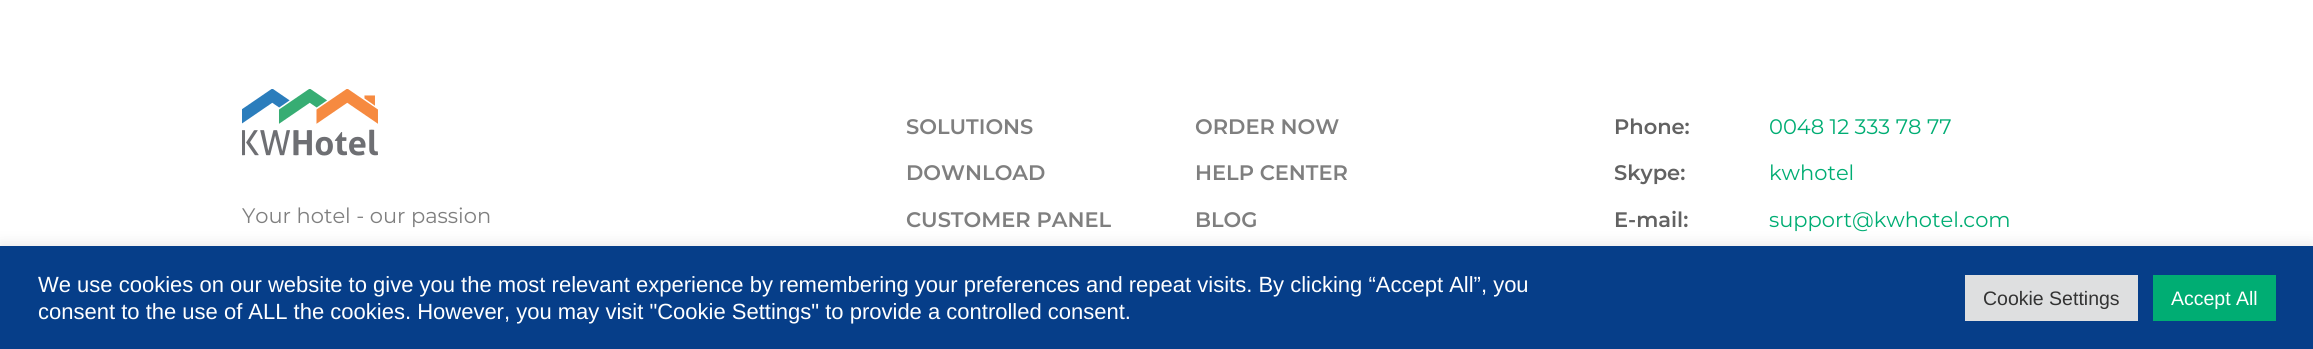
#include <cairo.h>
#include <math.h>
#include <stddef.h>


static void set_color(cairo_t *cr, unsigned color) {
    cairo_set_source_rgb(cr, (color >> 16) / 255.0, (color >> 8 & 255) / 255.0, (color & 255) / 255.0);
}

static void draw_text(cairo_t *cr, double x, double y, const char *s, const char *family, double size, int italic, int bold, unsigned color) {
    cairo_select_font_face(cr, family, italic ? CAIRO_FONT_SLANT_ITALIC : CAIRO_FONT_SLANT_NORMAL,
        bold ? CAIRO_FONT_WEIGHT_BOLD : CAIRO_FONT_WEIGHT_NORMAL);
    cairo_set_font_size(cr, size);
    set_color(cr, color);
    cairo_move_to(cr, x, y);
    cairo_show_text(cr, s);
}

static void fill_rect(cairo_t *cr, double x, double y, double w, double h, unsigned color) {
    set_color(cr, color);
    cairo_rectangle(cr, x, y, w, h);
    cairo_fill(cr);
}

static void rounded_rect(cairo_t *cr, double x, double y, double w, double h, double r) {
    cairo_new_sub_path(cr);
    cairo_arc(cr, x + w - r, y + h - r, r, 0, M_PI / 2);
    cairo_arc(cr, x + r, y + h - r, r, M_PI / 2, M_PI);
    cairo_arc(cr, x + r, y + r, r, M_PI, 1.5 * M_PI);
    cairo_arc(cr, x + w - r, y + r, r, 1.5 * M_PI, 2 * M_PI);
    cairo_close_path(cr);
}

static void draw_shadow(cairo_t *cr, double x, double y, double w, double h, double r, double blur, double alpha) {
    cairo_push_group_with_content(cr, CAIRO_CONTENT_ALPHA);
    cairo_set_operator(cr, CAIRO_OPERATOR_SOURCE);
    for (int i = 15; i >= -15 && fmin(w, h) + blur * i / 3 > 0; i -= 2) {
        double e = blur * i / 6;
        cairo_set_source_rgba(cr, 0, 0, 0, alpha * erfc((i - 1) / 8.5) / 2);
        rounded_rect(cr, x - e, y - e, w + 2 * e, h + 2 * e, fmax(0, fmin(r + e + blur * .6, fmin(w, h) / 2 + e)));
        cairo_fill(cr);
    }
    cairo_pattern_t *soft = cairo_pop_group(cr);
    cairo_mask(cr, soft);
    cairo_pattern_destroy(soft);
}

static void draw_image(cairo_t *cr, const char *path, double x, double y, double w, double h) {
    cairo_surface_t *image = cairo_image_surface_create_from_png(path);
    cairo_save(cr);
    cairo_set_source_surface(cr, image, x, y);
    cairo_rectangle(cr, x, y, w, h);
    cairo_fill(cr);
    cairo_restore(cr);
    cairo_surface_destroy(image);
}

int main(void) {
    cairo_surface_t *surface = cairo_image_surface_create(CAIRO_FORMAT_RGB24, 2313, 349);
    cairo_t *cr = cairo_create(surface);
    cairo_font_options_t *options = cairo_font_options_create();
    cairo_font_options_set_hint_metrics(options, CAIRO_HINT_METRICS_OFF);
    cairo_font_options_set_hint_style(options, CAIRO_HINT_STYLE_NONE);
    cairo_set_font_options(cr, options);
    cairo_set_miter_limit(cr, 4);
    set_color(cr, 0xFFFFFF);
    cairo_paint(cr);
    draw_image(cr, "assets/img1.png", 242, 89, 136, 67);
    draw_text(cr, 242, 223, "Your hotel - our passion", "Montserrat", 21, 0, 0, 0x7F7F7F);
    draw_text(cr, 906, 134, "SOLUTIONS", "Montserrat SemiBold", 21, 0, 0, 0x7F7F7F);
    draw_text(cr, 1195, 134, "ORDER NOW", "Montserrat SemiBold", 21, 0, 0, 0x7F7F7F);
    draw_text(cr, 906, 180, "DOWNLOAD", "Montserrat SemiBold", 21, 0, 0, 0x7F7F7F);
    draw_text(cr, 1195, 180, "HELP CENTER", "Montserrat SemiBold", 21, 0, 0, 0x7F7F7F);
    draw_text(cr, 906, 227, "CUSTOMER PANEL", "Montserrat SemiBold", 21, 0, 0, 0x7F7F7F);
    draw_text(cr, 1195, 227, "BLOG", "Montserrat SemiBold", 21, 0, 0, 0x7F7F7F);
    draw_text(cr, 1614, 134, "Phone:", "Montserrat SemiBold", 21, 0, 0, 0x626262);
    draw_text(cr, 1769, 134, "0048 12 333 78 77", "Montserrat", 21, 0, 0, 0x00AD73);
    draw_text(cr, 1614, 180, "Skype:", "Montserrat SemiBold", 21, 0, 0, 0x626262);
    draw_text(cr, 1769, 180, "kwhotel", "Montserrat", 21, 0, 0, 0x00AD73);
    draw_text(cr, 1614, 227, "E-mail:", "Montserrat SemiBold", 21, 0, 0, 0x626262);
    draw_text(cr, 1769, 227, "support@kwhotel.com", "Montserrat", 21, 0, 0, 0x00AD73);
    set_color(cr, 0xACABAB);
    draw_shadow(cr, 0, 245, 2313, 103, 0, 7.5, 0.3);
    fill_rect(cr, 0, 246, 2313, 103, 0x063E89);
    draw_text(cr, 38, 292, "We use cookies on our website to give you the most relevant experience by remembering your preferences and repeat visits. By clicking “Accept All”, you", "Liberation Sans", 22, 0, 0, 0xFFFFFF);
    draw_text(cr, 38, 319, "consent to the use of ALL the cookies. However, you may visit \"Cookie Settings\" to provide a controlled consent.", "Liberation Sans", 22, 0, 0, 0xFFFFFF);
    fill_rect(cr, 1965, 275, 173, 46, 0xDEDFE0);
    draw_text(cr, 1983, 305, "Cookie Settings", "Liberation Sans", 19.5, 0, 0, 0x333333);
    fill_rect(cr, 2153, 275, 123, 46, 0x00AD73);
    draw_text(cr, 2171, 305, "Accept All", "Liberation Sans", 19.5, 0, 0, 0xFFFFFF);
    cairo_surface_write_to_png(surface, "output.png");
    cairo_font_options_destroy(options);
    cairo_destroy(cr);
    cairo_surface_destroy(surface);
    return 0;
}
